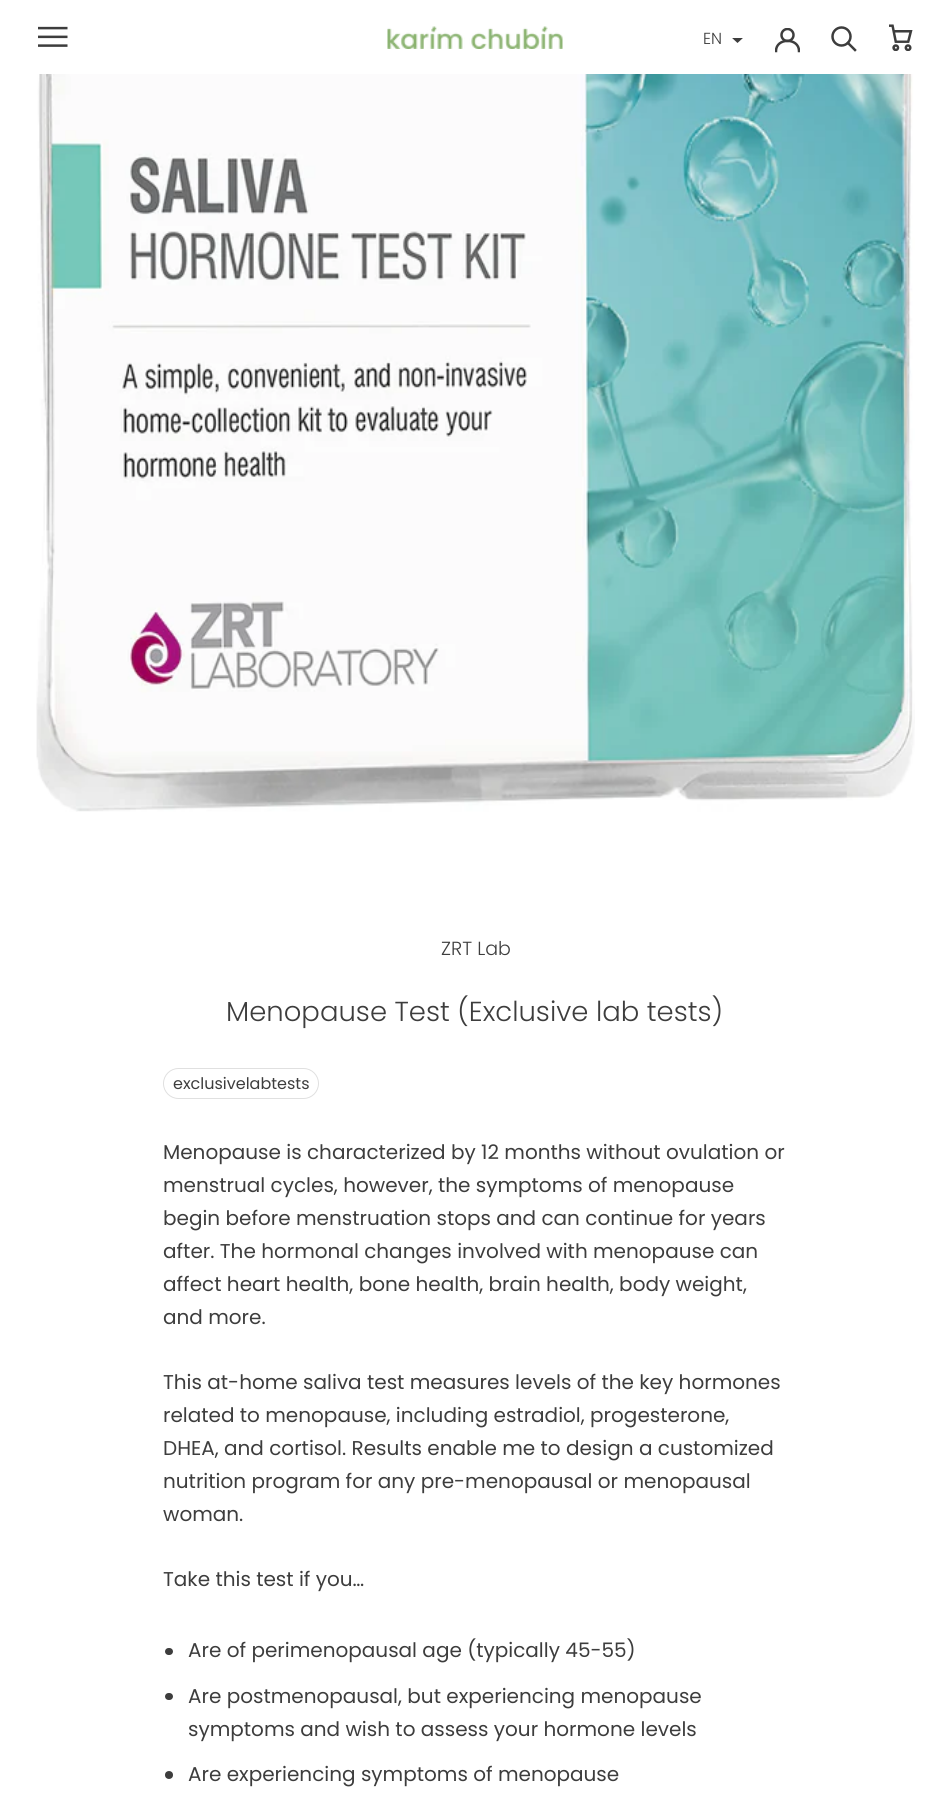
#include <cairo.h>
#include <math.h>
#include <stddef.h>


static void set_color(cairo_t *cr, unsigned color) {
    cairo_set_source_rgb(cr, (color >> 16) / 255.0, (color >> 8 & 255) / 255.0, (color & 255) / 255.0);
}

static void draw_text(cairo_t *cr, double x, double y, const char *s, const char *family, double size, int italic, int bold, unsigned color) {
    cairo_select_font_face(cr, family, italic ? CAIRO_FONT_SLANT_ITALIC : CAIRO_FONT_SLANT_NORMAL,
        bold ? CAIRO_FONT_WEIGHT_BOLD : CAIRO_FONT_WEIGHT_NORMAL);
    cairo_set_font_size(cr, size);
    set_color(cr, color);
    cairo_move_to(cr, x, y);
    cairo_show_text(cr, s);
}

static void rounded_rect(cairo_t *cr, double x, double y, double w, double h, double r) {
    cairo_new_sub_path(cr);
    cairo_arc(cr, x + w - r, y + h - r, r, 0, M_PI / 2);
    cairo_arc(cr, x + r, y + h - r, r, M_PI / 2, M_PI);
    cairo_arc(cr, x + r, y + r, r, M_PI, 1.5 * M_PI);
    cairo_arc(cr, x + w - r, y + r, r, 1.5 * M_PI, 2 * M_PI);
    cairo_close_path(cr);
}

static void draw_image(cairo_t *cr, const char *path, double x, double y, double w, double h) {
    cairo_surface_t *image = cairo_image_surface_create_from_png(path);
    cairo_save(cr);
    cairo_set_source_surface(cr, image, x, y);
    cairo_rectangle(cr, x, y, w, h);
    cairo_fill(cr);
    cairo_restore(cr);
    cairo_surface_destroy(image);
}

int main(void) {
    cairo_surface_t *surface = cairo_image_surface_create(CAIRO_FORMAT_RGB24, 949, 1805);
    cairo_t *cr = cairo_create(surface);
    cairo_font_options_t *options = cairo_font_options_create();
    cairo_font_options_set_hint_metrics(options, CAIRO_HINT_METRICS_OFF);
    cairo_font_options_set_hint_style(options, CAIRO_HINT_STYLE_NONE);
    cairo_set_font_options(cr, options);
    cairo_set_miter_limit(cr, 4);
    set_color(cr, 0xFFFFFF);
    cairo_paint(cr);
    draw_text(cr, 703, 44, "EN", "Poppins Light", 16, 0, 0, 0x3D3D3D);
    cairo_save(cr);
    cairo_rectangle(cr, 731, 38, 13, 6);
    cairo_clip(cr);
    cairo_set_fill_rule(cr, CAIRO_FILL_RULE_EVEN_ODD);
    cairo_new_path(cr);
    cairo_move_to(cr, 744, 37);
    cairo_line_to(cr, 737.5, 43);
    cairo_line_to(cr, 731, 37);
    cairo_close_path(cr);
    cairo_fill(cr);
    cairo_restore(cr);
    draw_image(cr, "assets/img1.png", 38, 26, 30, 21);
    draw_image(cr, "assets/img2.png", 387, 26, 176, 23);
    cairo_save(cr);
    cairo_rectangle(cr, 775, 28, 25, 25);
    cairo_clip(cr);
    cairo_new_path(cr);
    cairo_move_to(cr, 776, 51);
    cairo_curve_to(cr, 776, 37.5, 799, 37.5, 799, 51);
    cairo_set_line_width(cr, 2.5);
    cairo_set_line_cap(cr, CAIRO_LINE_CAP_SQUARE);
    cairo_stroke(cr);
    cairo_arc(cr, 787.5, 35, 6, 0, 2 * M_PI);
    cairo_set_line_cap(cr, CAIRO_LINE_CAP_BUTT);
    cairo_stroke(cr);
    cairo_restore(cr);
    cairo_new_path(cr);
    cairo_move_to(cr, 855, 50);
    cairo_line_to(cr, 848, 43);
    cairo_set_line_width(cr, 2.5);
    cairo_set_line_cap(cr, CAIRO_LINE_CAP_SQUARE);
    cairo_stroke(cr);
    cairo_arc(cr, 841.5, 36.5, 9, 0, 2 * M_PI);
    cairo_set_line_cap(cr, CAIRO_LINE_CAP_BUTT);
    cairo_stroke(cr);
    draw_image(cr, "assets/img3.png", 889, 24, 24, 27);
    draw_image(cr, "assets/img4.png", 36, 74, 879, 738);
    draw_text(cr, 441, 955, "ZRT Lab", "Poppins Light", 19, 0, 0, 0x3D3D3D);
    draw_text(cr, 226, 1021, "Menopause Test (Exclusive lab tests)", "Poppins Light", 27.5, 0, 0, 0x3D3D3D);
    rounded_rect(cr, 163.5, 1068.5, 155, 30, 15);
    set_color(cr, 0xE0E0E0);
    cairo_set_line_width(cr, 1);
    cairo_stroke(cr);
    draw_text(cr, 173, 1089, "exclusivelabtests", "Poppins", 16, 0, 0, 0x3D3D3D);
    draw_text(cr, 163, 1159, "Menopause is characterized by 12 months without ovulation or", "Poppins", 20, 0, 0, 0x3D3D3D);
    draw_text(cr, 163, 1192, "menstrual cycles, however, the symptoms of menopause", "Poppins", 20, 0, 0, 0x3D3D3D);
    draw_text(cr, 163, 1225, "begin before menstruation stops and can continue for years", "Poppins", 20, 0, 0, 0x3D3D3D);
    draw_text(cr, 163, 1258, "after. The hormonal changes involved with menopause can", "Poppins", 20, 0, 0, 0x3D3D3D);
    draw_text(cr, 163, 1291, "affect heart health, bone health, brain health, body weight,", "Poppins", 20, 0, 0, 0x3D3D3D);
    draw_text(cr, 163, 1324, "and more.", "Poppins", 20, 0, 0, 0x3D3D3D);
    draw_text(cr, 163, 1389, "This at-home saliva test measures levels of the key hormones", "Poppins", 20, 0, 0, 0x3D3D3D);
    draw_text(cr, 163, 1422, "related to menopause, including estradiol, progesterone,", "Poppins", 20, 0, 0, 0x3D3D3D);
    draw_text(cr, 163, 1455, "DHEA, and cortisol. Results enable me to design a customized", "Poppins", 20, 0, 0, 0x3D3D3D);
    draw_text(cr, 163, 1488, "nutrition program for any pre-menopausal or menopausal", "Poppins", 20, 0, 0, 0x3D3D3D);
    draw_text(cr, 163, 1521, "woman.", "Poppins", 20, 0, 0, 0x3D3D3D);
    draw_text(cr, 163, 1586, "Take this test if you…", "Poppins", 20, 0, 0, 0x3D3D3D);
    rounded_rect(cr, 165, 1648, 8, 7, 3.5);
    cairo_fill(cr);
    draw_text(cr, 188, 1657, "Are of perimenopausal age (typically 45-55)", "Poppins", 20, 0, 0, 0x3D3D3D);
    rounded_rect(cr, 165, 1693, 8, 7, 3.5);
    cairo_fill(cr);
    draw_text(cr, 188, 1703, "Are postmenopausal, but experiencing menopause", "Poppins", 20, 0, 0, 0x3D3D3D);
    draw_text(cr, 188, 1736, "symptoms and wish to assess your hormone levels", "Poppins", 20, 0, 0, 0x3D3D3D);
    cairo_new_path(cr);
    cairo_arc(cr, 169, 1775, 4, 0, 2 * M_PI);
    cairo_fill(cr);
    draw_text(cr, 188, 1781, "Are experiencing symptoms of menopause", "Poppins", 20, 0, 0, 0x3D3D3D);
    cairo_surface_write_to_png(surface, "output.png");
    cairo_font_options_destroy(options);
    cairo_destroy(cr);
    cairo_surface_destroy(surface);
    return 0;
}
